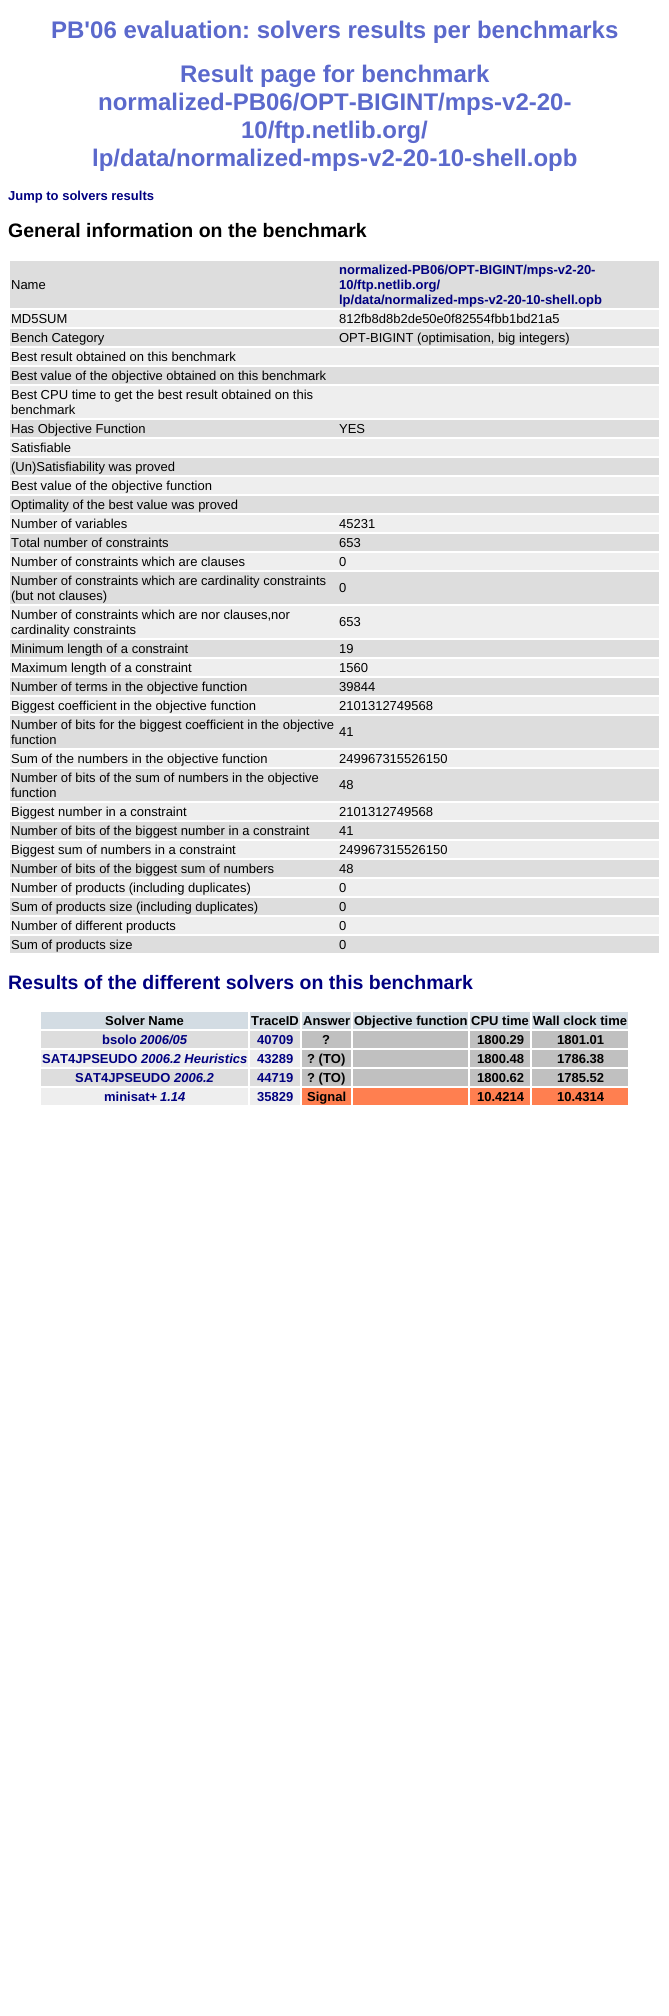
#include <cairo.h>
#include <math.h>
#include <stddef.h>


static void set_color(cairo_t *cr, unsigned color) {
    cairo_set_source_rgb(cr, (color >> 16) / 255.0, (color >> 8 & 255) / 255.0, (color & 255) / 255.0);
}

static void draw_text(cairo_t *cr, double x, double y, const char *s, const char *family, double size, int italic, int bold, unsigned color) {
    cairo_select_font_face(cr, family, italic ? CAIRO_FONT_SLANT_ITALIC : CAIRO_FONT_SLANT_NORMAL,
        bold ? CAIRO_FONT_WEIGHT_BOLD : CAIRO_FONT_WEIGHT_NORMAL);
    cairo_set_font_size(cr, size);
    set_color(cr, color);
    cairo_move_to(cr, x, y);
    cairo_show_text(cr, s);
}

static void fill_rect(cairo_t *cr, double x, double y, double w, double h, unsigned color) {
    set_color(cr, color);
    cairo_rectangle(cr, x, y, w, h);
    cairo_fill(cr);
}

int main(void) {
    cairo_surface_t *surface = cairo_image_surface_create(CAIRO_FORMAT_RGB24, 669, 2016);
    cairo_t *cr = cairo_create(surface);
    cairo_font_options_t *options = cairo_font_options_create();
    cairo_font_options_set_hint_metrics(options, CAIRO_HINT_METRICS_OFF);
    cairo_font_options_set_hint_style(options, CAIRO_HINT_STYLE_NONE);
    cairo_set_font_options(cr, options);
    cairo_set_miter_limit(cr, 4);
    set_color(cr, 0xFFFFFF);
    cairo_paint(cr);
    draw_text(cr, 51, 38, "PB'06 evaluation: solvers results per benchmarks", "Liberation Sans", 24, 0, 1, 0x5B69CC);
    draw_text(cr, 180, 82, "Result page for benchmark", "Liberation Sans", 24, 0, 1, 0x5B69CC);
    draw_text(cr, 98, 110, "normalized-PB06/OPT-BIGINT/mps-v2-20-", "Liberation Sans", 24, 0, 1, 0x5B69CC);
    draw_text(cr, 241, 138, "10/ftp.netlib.org/", "Liberation Sans", 24, 0, 1, 0x5B69CC);
    draw_text(cr, 92, 166, "lp/data/normalized-mps-v2-20-10-shell.opb", "Liberation Sans", 24, 0, 1, 0x5B69CC);
    draw_text(cr, 8, 200, "Jump to solvers results", "Liberation Sans", 13, 0, 1, 0x000080);
    draw_text(cr, 8, 237, "General information on the benchmark", "Liberation Sans", 19.5, 0, 1, 0x000000);
    fill_rect(cr, 10, 261, 649, 47, 0xDDDDDD);
    draw_text(cr, 11, 289, "Name", "Liberation Sans", 13, 0, 0, 0x000000);
    draw_text(cr, 339, 274, "normalized-PB06/OPT-BIGINT/mps-v2-20-", "Liberation Sans", 13, 0, 1, 0x000080);
    draw_text(cr, 339, 289, "10/ftp.netlib.org/", "Liberation Sans", 13, 0, 1, 0x000080);
    draw_text(cr, 339, 304, "lp/data/normalized-mps-v2-20-10-shell.opb", "Liberation Sans", 13, 0, 1, 0x000080);
    fill_rect(cr, 10, 310, 649, 17, 0xEEEEEE);
    draw_text(cr, 11, 323, "MD5SUM", "Liberation Sans", 13, 0, 0, 0x000000);
    draw_text(cr, 339, 323, "812fb8d8b2de50e0f82554fbb1bd21a5", "Liberation Sans", 13, 0, 0, 0x000000);
    fill_rect(cr, 10, 329, 649, 17, 0xDDDDDD);
    draw_text(cr, 11, 342, "Bench Category", "Liberation Sans", 13, 0, 0, 0x000000);
    draw_text(cr, 339, 342, "OPT-BIGINT (optimisation, big integers)", "Liberation Sans", 13, 0, 0, 0x000000);
    fill_rect(cr, 10, 348, 649, 17, 0xEEEEEE);
    draw_text(cr, 11, 361, "Best result obtained on this benchmark", "Liberation Sans", 13, 0, 0, 0x000000);
    fill_rect(cr, 10, 367, 649, 17, 0xDDDDDD);
    draw_text(cr, 11, 380, "Best value of the objective obtained on this benchmark", "Liberation Sans", 13, 0, 0, 0x000000);
    fill_rect(cr, 10, 386, 649, 32, 0xEEEEEE);
    draw_text(cr, 11, 399, "Best CPU time to get the best result obtained on this", "Liberation Sans", 13, 0, 0, 0x000000);
    draw_text(cr, 11, 414, "benchmark", "Liberation Sans", 13, 0, 0, 0x000000);
    fill_rect(cr, 10, 420, 649, 17, 0xDDDDDD);
    draw_text(cr, 11, 433, "Has Objective Function", "Liberation Sans", 13, 0, 0, 0x000000);
    draw_text(cr, 339, 433, "YES", "Liberation Sans", 13, 0, 0, 0x000000);
    fill_rect(cr, 10, 439, 649, 17, 0xEEEEEE);
    draw_text(cr, 11, 452, "Satisfiable", "Liberation Sans", 13, 0, 0, 0x000000);
    fill_rect(cr, 10, 458, 649, 17, 0xDDDDDD);
    draw_text(cr, 11, 471, "(Un)Satisfiability was proved", "Liberation Sans", 13, 0, 0, 0x000000);
    fill_rect(cr, 10, 477, 649, 17, 0xEEEEEE);
    draw_text(cr, 11, 490, "Best value of the objective function", "Liberation Sans", 13, 0, 0, 0x000000);
    fill_rect(cr, 10, 496, 649, 17, 0xDDDDDD);
    draw_text(cr, 11, 509, "Optimality of the best value was proved", "Liberation Sans", 13, 0, 0, 0x000000);
    fill_rect(cr, 10, 515, 649, 17, 0xEEEEEE);
    draw_text(cr, 11, 528, "Number of variables", "Liberation Sans", 13, 0, 0, 0x000000);
    draw_text(cr, 339, 528, "45231", "Liberation Sans", 13, 0, 0, 0x000000);
    fill_rect(cr, 10, 534, 649, 17, 0xDDDDDD);
    draw_text(cr, 11, 547, "Total number of constraints", "Liberation Sans", 13, 0, 0, 0x000000);
    draw_text(cr, 339, 547, "653", "Liberation Sans", 13, 0, 0, 0x000000);
    fill_rect(cr, 10, 553, 649, 17, 0xEEEEEE);
    draw_text(cr, 11, 566, "Number of constraints which are clauses", "Liberation Sans", 13, 0, 0, 0x000000);
    draw_text(cr, 339, 566, "0", "Liberation Sans", 13, 0, 0, 0x000000);
    fill_rect(cr, 10, 572, 649, 32, 0xDDDDDD);
    draw_text(cr, 11, 585, "Number of constraints which are cardinality constraints", "Liberation Sans", 13, 0, 0, 0x000000);
    draw_text(cr, 11, 600, "(but not clauses)", "Liberation Sans", 13, 0, 0, 0x000000);
    draw_text(cr, 339, 592, "0", "Liberation Sans", 13, 0, 0, 0x000000);
    fill_rect(cr, 10, 606, 649, 32, 0xEEEEEE);
    draw_text(cr, 11, 619, "Number of constraints which are nor clauses,nor", "Liberation Sans", 13, 0, 0, 0x000000);
    draw_text(cr, 11, 634, "cardinality constraints", "Liberation Sans", 13, 0, 0, 0x000000);
    draw_text(cr, 339, 626, "653", "Liberation Sans", 13, 0, 0, 0x000000);
    fill_rect(cr, 10, 640, 649, 17, 0xDDDDDD);
    draw_text(cr, 11, 653, "Minimum length of a constraint", "Liberation Sans", 13, 0, 0, 0x000000);
    draw_text(cr, 339, 653, "19", "Liberation Sans", 13, 0, 0, 0x000000);
    fill_rect(cr, 10, 659, 649, 17, 0xEEEEEE);
    draw_text(cr, 11, 672, "Maximum length of a constraint", "Liberation Sans", 13, 0, 0, 0x000000);
    draw_text(cr, 339, 672, "1560", "Liberation Sans", 13, 0, 0, 0x000000);
    fill_rect(cr, 10, 678, 649, 17, 0xDDDDDD);
    draw_text(cr, 11, 691, "Number of terms in the objective function", "Liberation Sans", 13, 0, 0, 0x000000);
    draw_text(cr, 339, 691, "39844", "Liberation Sans", 13, 0, 0, 0x000000);
    fill_rect(cr, 10, 697, 649, 17, 0xEEEEEE);
    draw_text(cr, 11, 710, "Biggest coefficient in the objective function", "Liberation Sans", 13, 0, 0, 0x000000);
    draw_text(cr, 339, 710, "2101312749568", "Liberation Sans", 13, 0, 0, 0x000000);
    fill_rect(cr, 10, 716, 649, 32, 0xDDDDDD);
    draw_text(cr, 11, 729, "Number of bits for the biggest coefficient in the objective", "Liberation Sans", 13, 0, 0, 0x000000);
    draw_text(cr, 11, 744, "function", "Liberation Sans", 13, 0, 0, 0x000000);
    draw_text(cr, 339, 736, "41", "Liberation Sans", 13, 0, 0, 0x000000);
    fill_rect(cr, 10, 750, 649, 17, 0xEEEEEE);
    draw_text(cr, 11, 763, "Sum of the numbers in the objective function", "Liberation Sans", 13, 0, 0, 0x000000);
    draw_text(cr, 339, 763, "249967315526150", "Liberation Sans", 13, 0, 0, 0x000000);
    fill_rect(cr, 10, 769, 649, 32, 0xDDDDDD);
    draw_text(cr, 11, 782, "Number of bits of the sum of numbers in the objective", "Liberation Sans", 13, 0, 0, 0x000000);
    draw_text(cr, 11, 797, "function", "Liberation Sans", 13, 0, 0, 0x000000);
    draw_text(cr, 339, 789, "48", "Liberation Sans", 13, 0, 0, 0x000000);
    fill_rect(cr, 10, 803, 649, 17, 0xEEEEEE);
    draw_text(cr, 11, 816, "Biggest number in a constraint", "Liberation Sans", 13, 0, 0, 0x000000);
    draw_text(cr, 339, 816, "2101312749568", "Liberation Sans", 13, 0, 0, 0x000000);
    fill_rect(cr, 10, 822, 649, 17, 0xDDDDDD);
    draw_text(cr, 11, 835, "Number of bits of the biggest number in a constraint", "Liberation Sans", 13, 0, 0, 0x000000);
    draw_text(cr, 339, 835, "41", "Liberation Sans", 13, 0, 0, 0x000000);
    fill_rect(cr, 10, 841, 649, 17, 0xEEEEEE);
    draw_text(cr, 11, 854, "Biggest sum of numbers in a constraint", "Liberation Sans", 13, 0, 0, 0x000000);
    draw_text(cr, 339, 854, "249967315526150", "Liberation Sans", 13, 0, 0, 0x000000);
    fill_rect(cr, 10, 860, 649, 17, 0xDDDDDD);
    draw_text(cr, 11, 873, "Number of bits of the biggest sum of numbers", "Liberation Sans", 13, 0, 0, 0x000000);
    draw_text(cr, 339, 873, "48", "Liberation Sans", 13, 0, 0, 0x000000);
    fill_rect(cr, 10, 879, 649, 17, 0xEEEEEE);
    draw_text(cr, 11, 892, "Number of products (including duplicates)", "Liberation Sans", 13, 0, 0, 0x000000);
    draw_text(cr, 339, 892, "0", "Liberation Sans", 13, 0, 0, 0x000000);
    fill_rect(cr, 10, 898, 649, 17, 0xDDDDDD);
    draw_text(cr, 11, 911, "Sum of products size (including duplicates)", "Liberation Sans", 13, 0, 0, 0x000000);
    draw_text(cr, 339, 911, "0", "Liberation Sans", 13, 0, 0, 0x000000);
    fill_rect(cr, 10, 917, 649, 17, 0xEEEEEE);
    draw_text(cr, 11, 930, "Number of different products", "Liberation Sans", 13, 0, 0, 0x000000);
    draw_text(cr, 339, 930, "0", "Liberation Sans", 13, 0, 0, 0x000000);
    fill_rect(cr, 10, 936, 649, 17, 0xDDDDDD);
    draw_text(cr, 11, 949, "Sum of products size", "Liberation Sans", 13, 0, 0, 0x000000);
    draw_text(cr, 339, 949, "0", "Liberation Sans", 13, 0, 0, 0x000000);
    draw_text(cr, 8, 989, "Results of the different solvers on this benchmark", "Liberation Sans", 19.5, 0, 1, 0x000080);
    fill_rect(cr, 41, 1012, 207, 17, 0xD3DCE3);
    draw_text(cr, 105, 1025, "Solver Name", "Liberation Sans", 13, 0, 1, 0x000000);
    fill_rect(cr, 250, 1012, 50, 17, 0xD3DCE3);
    draw_text(cr, 251, 1025, "TraceID", "Liberation Sans", 13, 0, 1, 0x000000);
    fill_rect(cr, 302, 1012, 49, 17, 0xD3DCE3);
    draw_text(cr, 303, 1025, "Answer", "Liberation Sans", 13, 0, 1, 0x000000);
    fill_rect(cr, 353, 1012, 115, 17, 0xD3DCE3);
    draw_text(cr, 354, 1025, "Objective function", "Liberation Sans", 13, 0, 1, 0x000000);
    fill_rect(cr, 470, 1012, 60, 17, 0xD3DCE3);
    draw_text(cr, 471, 1025, "CPU time", "Liberation Sans", 13, 0, 1, 0x000000);
    fill_rect(cr, 532, 1012, 96, 17, 0xD3DCE3);
    draw_text(cr, 533, 1025, "Wall clock time", "Liberation Sans", 13, 0, 1, 0x000000);
    fill_rect(cr, 41, 1031, 207, 17, 0xDDDDDD);
    draw_text(cr, 102, 1044, "bsolo", "Liberation Sans", 13, 0, 1, 0x000080);
    draw_text(cr, 140, 1044, "2006/05", "Liberation Sans", 13, 1, 1, 0x000080);
    fill_rect(cr, 250, 1031, 50, 17, 0xDDDDDD);
    draw_text(cr, 257, 1044, "40709", "Liberation Sans", 13, 0, 1, 0x000080);
    fill_rect(cr, 302, 1031, 49, 17, 0xC0C0C0);
    draw_text(cr, 322, 1044, "?", "Liberation Sans", 13, 0, 1, 0x000000);
    fill_rect(cr, 353, 1031, 115, 17, 0xC0C0C0);
    fill_rect(cr, 470, 1031, 60, 17, 0xC0C0C0);
    draw_text(cr, 477, 1044, "1800.29", "Liberation Sans", 13, 0, 1, 0x000000);
    fill_rect(cr, 532, 1031, 96, 17, 0xC0C0C0);
    draw_text(cr, 557, 1044, "1801.01", "Liberation Sans", 13, 0, 1, 0x000000);
    fill_rect(cr, 41, 1050, 207, 17, 0xEEEEEE);
    draw_text(cr, 42, 1063, "SAT4JPSEUDO", "Liberation Sans", 13, 0, 1, 0x000080);
    draw_text(cr, 141, 1063, "2006.2 Heuristics", "Liberation Sans", 13, 1, 1, 0x000080);
    fill_rect(cr, 250, 1050, 50, 17, 0xEEEEEE);
    draw_text(cr, 257, 1063, "43289", "Liberation Sans", 13, 0, 1, 0x000080);
    fill_rect(cr, 302, 1050, 49, 17, 0xC0C0C0);
    draw_text(cr, 307, 1063, "? (TO)", "Liberation Sans", 13, 0, 1, 0x000000);
    fill_rect(cr, 353, 1050, 115, 17, 0xC0C0C0);
    fill_rect(cr, 470, 1050, 60, 17, 0xC0C0C0);
    draw_text(cr, 477, 1063, "1800.48", "Liberation Sans", 13, 0, 1, 0x000000);
    fill_rect(cr, 532, 1050, 96, 17, 0xC0C0C0);
    draw_text(cr, 557, 1063, "1786.38", "Liberation Sans", 13, 0, 1, 0x000000);
    fill_rect(cr, 41, 1069, 207, 17, 0xDDDDDD);
    draw_text(cr, 75, 1082, "SAT4JPSEUDO", "Liberation Sans", 13, 0, 1, 0x000080);
    draw_text(cr, 174, 1082, "2006.2", "Liberation Sans", 13, 1, 1, 0x000080);
    fill_rect(cr, 250, 1069, 50, 17, 0xDDDDDD);
    draw_text(cr, 257, 1082, "44719", "Liberation Sans", 13, 0, 1, 0x000080);
    fill_rect(cr, 302, 1069, 49, 17, 0xC0C0C0);
    draw_text(cr, 307, 1082, "? (TO)", "Liberation Sans", 13, 0, 1, 0x000000);
    fill_rect(cr, 353, 1069, 115, 17, 0xC0C0C0);
    fill_rect(cr, 470, 1069, 60, 17, 0xC0C0C0);
    draw_text(cr, 477, 1082, "1800.62", "Liberation Sans", 13, 0, 1, 0x000000);
    fill_rect(cr, 532, 1069, 96, 17, 0xC0C0C0);
    draw_text(cr, 557, 1082, "1785.52", "Liberation Sans", 13, 0, 1, 0x000000);
    fill_rect(cr, 41, 1088, 207, 17, 0xEEEEEE);
    draw_text(cr, 104, 1101, "minisat+", "Liberation Sans", 13, 0, 1, 0x000080);
    draw_text(cr, 160, 1101, "1.14", "Liberation Sans", 13, 1, 1, 0x000080);
    fill_rect(cr, 250, 1088, 50, 17, 0xEEEEEE);
    draw_text(cr, 257, 1101, "35829", "Liberation Sans", 13, 0, 1, 0x000080);
    fill_rect(cr, 302, 1088, 49, 17, 0xFF7F50);
    draw_text(cr, 307, 1101, "Signal", "Liberation Sans", 13, 0, 1, 0x000000);
    fill_rect(cr, 353, 1088, 115, 17, 0xFF7F50);
    fill_rect(cr, 470, 1088, 60, 17, 0xFF7F50);
    draw_text(cr, 477, 1101, "10.4214", "Liberation Sans", 13, 0, 1, 0x000000);
    fill_rect(cr, 532, 1088, 96, 17, 0xFF7F50);
    draw_text(cr, 557, 1101, "10.4314", "Liberation Sans", 13, 0, 1, 0x000000);
    cairo_surface_write_to_png(surface, "output.png");
    cairo_font_options_destroy(options);
    cairo_destroy(cr);
    cairo_surface_destroy(surface);
    return 0;
}
